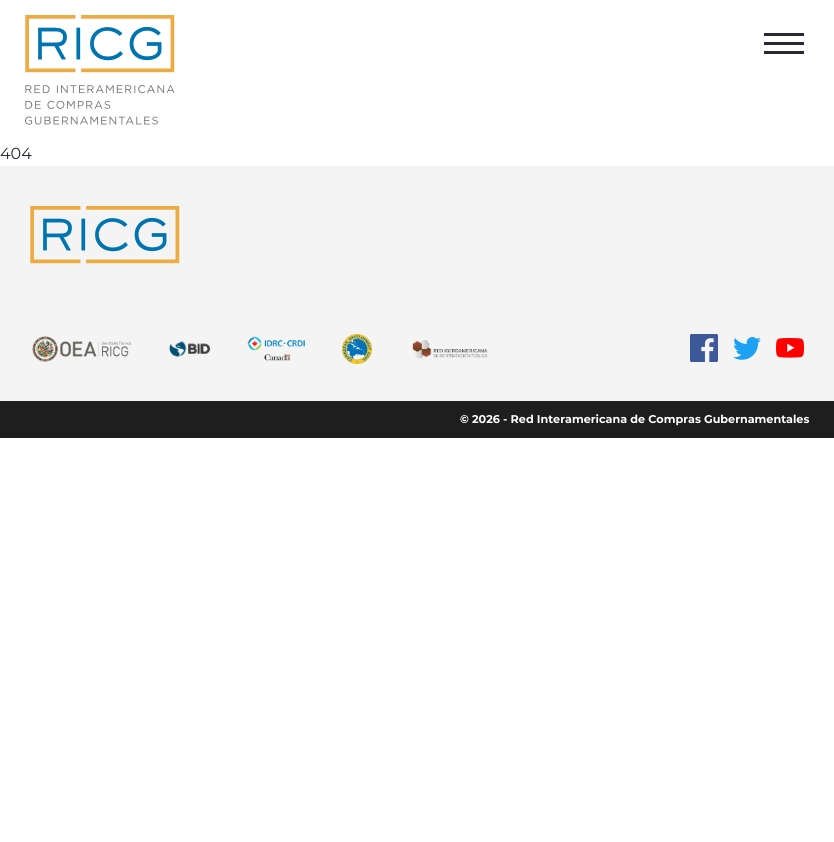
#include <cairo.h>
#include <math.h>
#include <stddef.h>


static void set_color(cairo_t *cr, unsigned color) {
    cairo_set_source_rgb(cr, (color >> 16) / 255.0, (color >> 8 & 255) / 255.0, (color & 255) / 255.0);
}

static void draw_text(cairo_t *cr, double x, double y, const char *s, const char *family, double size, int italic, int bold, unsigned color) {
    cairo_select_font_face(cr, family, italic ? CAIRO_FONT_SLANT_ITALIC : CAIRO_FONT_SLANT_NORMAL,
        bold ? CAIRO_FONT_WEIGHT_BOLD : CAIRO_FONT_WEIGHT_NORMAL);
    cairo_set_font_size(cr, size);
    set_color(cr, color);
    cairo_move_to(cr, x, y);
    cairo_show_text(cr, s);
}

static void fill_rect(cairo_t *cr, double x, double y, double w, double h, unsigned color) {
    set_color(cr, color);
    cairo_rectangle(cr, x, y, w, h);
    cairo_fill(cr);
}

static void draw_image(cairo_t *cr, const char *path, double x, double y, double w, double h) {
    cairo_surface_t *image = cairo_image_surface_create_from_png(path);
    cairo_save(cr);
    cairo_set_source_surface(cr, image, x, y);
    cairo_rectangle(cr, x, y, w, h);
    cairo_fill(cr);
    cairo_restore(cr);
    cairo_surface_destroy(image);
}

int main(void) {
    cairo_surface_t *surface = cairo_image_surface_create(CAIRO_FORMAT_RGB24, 834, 842);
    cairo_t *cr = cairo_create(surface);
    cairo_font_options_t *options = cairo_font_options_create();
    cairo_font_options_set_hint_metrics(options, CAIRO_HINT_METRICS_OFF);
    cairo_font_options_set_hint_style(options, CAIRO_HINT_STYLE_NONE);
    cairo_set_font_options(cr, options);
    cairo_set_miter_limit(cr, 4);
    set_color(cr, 0xFFFFFF);
    cairo_paint(cr);
    draw_image(cr, "assets/img1.png", 25, 15, 150, 58);
    draw_image(cr, "assets/img2.png", 25, 85, 150, 40);
    fill_rect(cr, 764, 33, 40, 3, 0x282838);
    fill_rect(cr, 764, 42, 40, 3, 0x282838);
    fill_rect(cr, 764, 51, 40, 3, 0x282838);
    draw_text(cr, 0, 159, "404", "Montserrat", 16, 0, 0, 0x282838);
    fill_rect(cr, 0, 166, 834, 235, 0xF4F4F4);
    draw_image(cr, "assets/img3.png", 30, 206, 150, 58);
    draw_image(cr, "assets/img4.png", 32, 336, 99, 26);
    draw_image(cr, "assets/img5.png", 169, 341, 42, 16);
    draw_image(cr, "assets/img6.png", 247, 336, 58, 25);
    draw_image(cr, "assets/img7.png", 342, 334, 30, 30);
    draw_image(cr, "assets/img8.png", 412, 340, 76, 19);
    draw_image(cr, "assets/img9.png", 690, 334, 28, 28);
    draw_image(cr, "assets/img10.png", 733, 337, 28, 23);
    draw_image(cr, "assets/img11.png", 776, 338, 28, 20);
    fill_rect(cr, 0, 401, 834, 37, 0x1E1E1E);
    draw_text(cr, 460, 423, "© 2026 - Red Interamericana de Compras Gubernamentales", "Montserrat", 11.2, 0, 1, 0xFFFFFF);
    cairo_surface_write_to_png(surface, "output.png");
    cairo_font_options_destroy(options);
    cairo_destroy(cr);
    cairo_surface_destroy(surface);
    return 0;
}
